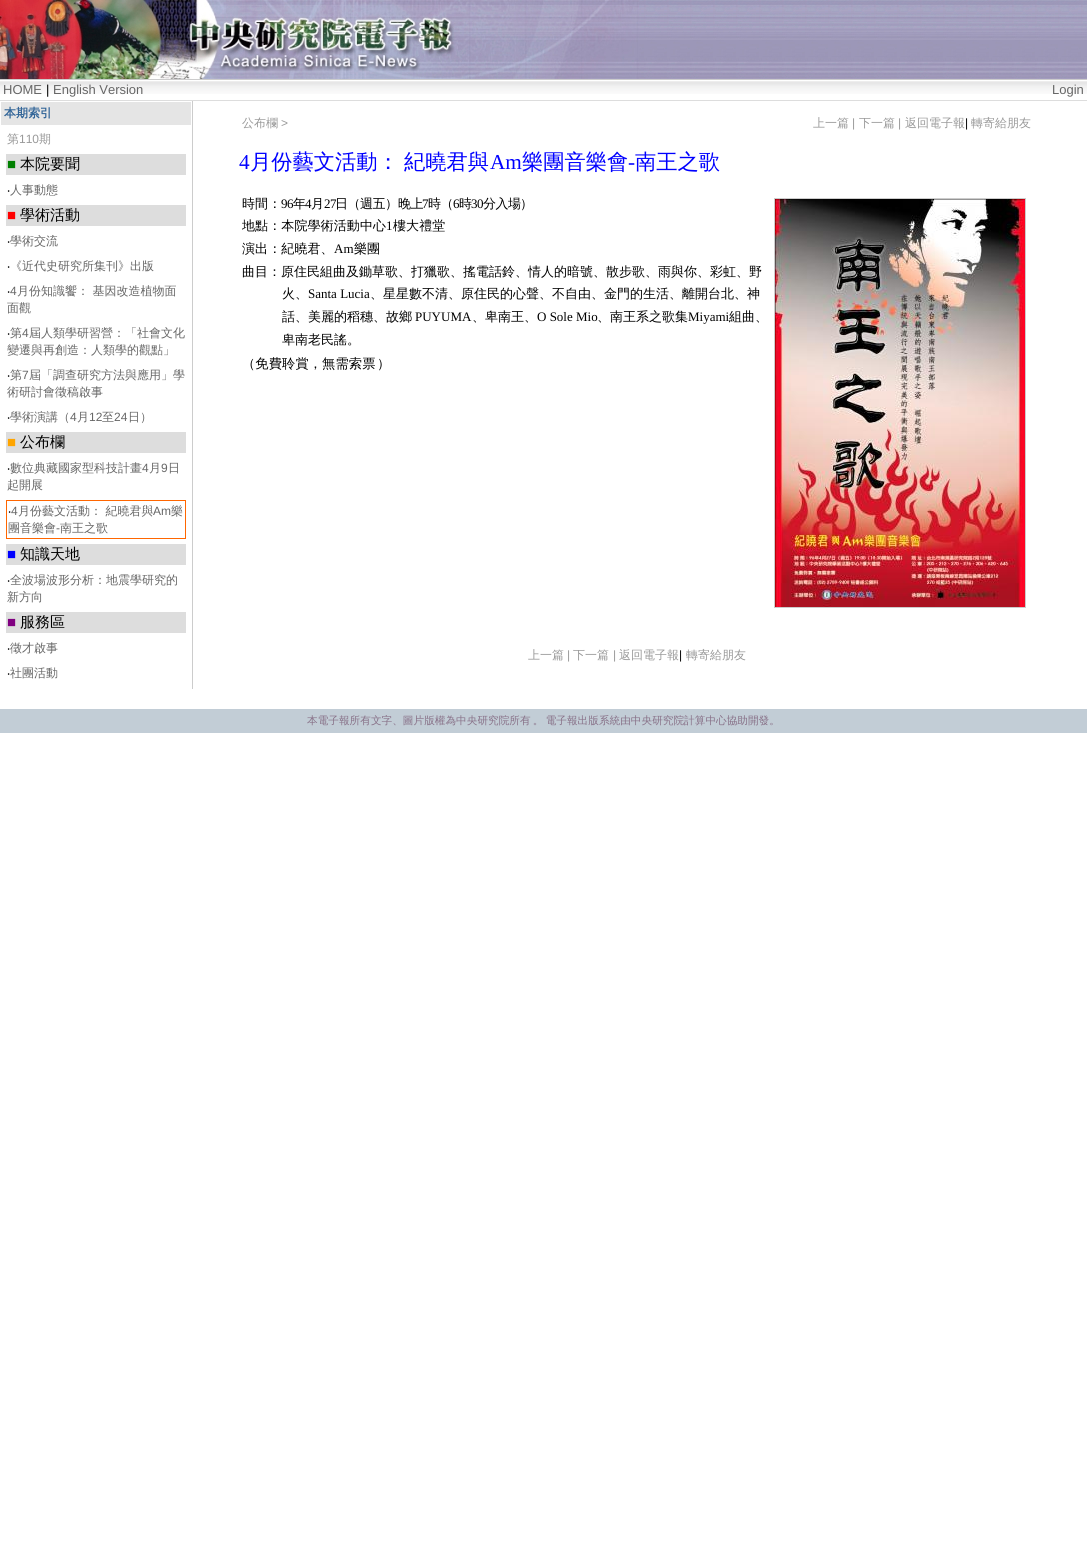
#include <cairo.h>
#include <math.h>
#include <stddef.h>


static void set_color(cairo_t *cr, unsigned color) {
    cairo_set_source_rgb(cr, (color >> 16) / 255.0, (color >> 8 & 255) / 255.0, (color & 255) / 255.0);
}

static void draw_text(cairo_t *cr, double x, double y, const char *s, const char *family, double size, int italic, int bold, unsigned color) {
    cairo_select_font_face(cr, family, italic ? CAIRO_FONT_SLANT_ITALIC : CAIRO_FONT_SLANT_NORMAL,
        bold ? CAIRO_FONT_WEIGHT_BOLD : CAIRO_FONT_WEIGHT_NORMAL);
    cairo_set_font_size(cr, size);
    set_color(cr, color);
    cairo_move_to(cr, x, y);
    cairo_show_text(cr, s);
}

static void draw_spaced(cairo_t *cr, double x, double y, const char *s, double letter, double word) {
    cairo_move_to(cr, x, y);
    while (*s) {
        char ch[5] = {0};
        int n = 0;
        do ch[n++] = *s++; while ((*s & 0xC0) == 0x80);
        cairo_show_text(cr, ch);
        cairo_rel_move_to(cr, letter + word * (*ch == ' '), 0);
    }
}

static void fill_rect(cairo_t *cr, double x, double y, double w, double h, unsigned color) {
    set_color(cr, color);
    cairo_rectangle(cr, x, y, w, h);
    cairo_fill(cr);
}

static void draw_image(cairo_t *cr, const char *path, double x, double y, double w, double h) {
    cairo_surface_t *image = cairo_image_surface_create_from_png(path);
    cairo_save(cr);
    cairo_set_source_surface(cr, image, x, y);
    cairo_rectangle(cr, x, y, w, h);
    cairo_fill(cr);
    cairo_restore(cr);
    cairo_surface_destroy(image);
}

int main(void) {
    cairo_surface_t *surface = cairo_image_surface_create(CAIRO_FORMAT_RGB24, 1087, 1567);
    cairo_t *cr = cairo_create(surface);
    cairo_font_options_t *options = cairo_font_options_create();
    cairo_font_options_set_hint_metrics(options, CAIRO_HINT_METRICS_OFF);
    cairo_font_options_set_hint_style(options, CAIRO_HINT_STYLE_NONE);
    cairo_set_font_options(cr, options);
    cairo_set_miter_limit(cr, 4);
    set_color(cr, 0xFFFFFF);
    cairo_paint(cr);
    draw_image(cr, "assets/img1.png", 639, 0, 448, 79);
    draw_image(cr, "assets/img2.png", 0, 0, 639, 79);
    draw_image(cr, "assets/img3.png", 0, 79, 1087, 15);
    fill_rect(cr, 0, 100, 1087, 1, 0xDDDDDD);
    draw_text(cr, 3, 94, "HOME", "Liberation Sans", 13, 0, 0, 0x666666);
    draw_text(cr, 46, 94, "|", "Liberation Sans", 13, 0, 0, 0x000000);
    draw_text(cr, 53, 94, "English Version", "Liberation Sans", 13, 0, 0, 0x666666);
    draw_text(cr, 1052, 94, "Login", "Liberation Sans", 13, 0, 0, 0x666666);
    fill_rect(cr, 192, 101, 1, 588, 0xCCCCCC);
    fill_rect(cr, 1, 102, 190, 23, 0xE5E5E5);
    draw_text(cr, 4, 117, "本期索引", "WenQuanYi Zen Hei", 12, 0, 1, 0x326598);
    draw_text(cr, 7, 143, "第", "WenQuanYi Zen Hei Medium", 12, 0, 0, 0x999999);
    draw_text(cr, 19, 143, "110", "Liberation Sans", 12, 0, 0, 0x999999);
    draw_text(cr, 39, 143, "期", "WenQuanYi Zen Hei Medium", 12, 0, 0, 0x999999);
    fill_rect(cr, 6, 154, 180, 21, 0xDDDDDD);
    draw_text(cr, 7, 169, "■", "Liberation Sans", 15, 0, 0, 0x008000);
    draw_text(cr, 20, 169, "本院要聞", "WenQuanYi Zen Hei Medium", 15, 0, 0, 0x000000);
    draw_text(cr, 7, 194, "‧", "Noto Sans", 12, 0, 0, 0x000000);
    draw_text(cr, 10, 194, "人事動態", "WenQuanYi Zen Hei Medium", 12, 0, 0, 0x666666);
    fill_rect(cr, 6, 205, 180, 21, 0xDDDDDD);
    draw_text(cr, 7, 220, "■", "Liberation Sans", 15, 0, 0, 0xFF0000);
    draw_text(cr, 20, 220, "學術活動", "WenQuanYi Zen Hei Medium", 15, 0, 0, 0x000000);
    draw_text(cr, 7, 245, "‧", "Noto Sans", 12, 0, 0, 0x000000);
    draw_text(cr, 10, 245, "學術交流", "WenQuanYi Zen Hei Medium", 12, 0, 0, 0x666666);
    draw_text(cr, 7, 270, "‧", "Noto Sans", 12, 0, 0, 0x000000);
    draw_text(cr, 10, 270, "《近代史研究所集刊》出版", "WenQuanYi Zen Hei Medium", 12, 0, 0, 0x666666);
    draw_text(cr, 7, 295, "‧", "Noto Sans", 12, 0, 0, 0x000000);
    draw_text(cr, 10, 295, "4", "Liberation Sans", 12, 0, 0, 0x666666);
    draw_text(cr, 17, 295, "月份知識饗： 基因改造植物面", "WenQuanYi Zen Hei Medium", 12, 0, 0, 0x666666);
    draw_text(cr, 7, 312, "面觀", "WenQuanYi Zen Hei Medium", 12, 0, 0, 0x666666);
    draw_text(cr, 7, 337, "‧", "Noto Sans", 12, 0, 0, 0x000000);
    draw_text(cr, 10, 337, "第", "WenQuanYi Zen Hei Medium", 12, 0, 0, 0x666666);
    draw_text(cr, 22, 337, "4", "Liberation Sans", 12, 0, 0, 0x666666);
    draw_text(cr, 29, 337, "屆人類學研習營：「社會文化", "WenQuanYi Zen Hei Medium", 12, 0, 0, 0x666666);
    draw_text(cr, 7, 354, "變遷與再創造：人類學的觀點」", "WenQuanYi Zen Hei Medium", 12, 0, 0, 0x666666);
    draw_text(cr, 7, 379, "‧", "Noto Sans", 12, 0, 0, 0x000000);
    draw_text(cr, 10, 379, "第", "WenQuanYi Zen Hei Medium", 12, 0, 0, 0x666666);
    draw_text(cr, 22, 379, "7", "Liberation Sans", 12, 0, 0, 0x666666);
    draw_text(cr, 29, 379, "屆「調查研究方法與應用」學", "WenQuanYi Zen Hei Medium", 12, 0, 0, 0x666666);
    draw_text(cr, 7, 396, "術研討會徵稿啟事", "WenQuanYi Zen Hei Medium", 12, 0, 0, 0x666666);
    draw_text(cr, 7, 421, "‧", "Noto Sans", 12, 0, 0, 0x000000);
    draw_text(cr, 10, 421, "學術演講（", "WenQuanYi Zen Hei Medium", 12, 0, 0, 0x666666);
    draw_text(cr, 70, 421, "4", "Liberation Sans", 12, 0, 0, 0x666666);
    draw_text(cr, 77, 421, "月", "WenQuanYi Zen Hei Medium", 12, 0, 0, 0x666666);
    draw_text(cr, 89, 421, "12", "Liberation Sans", 12, 0, 0, 0x666666);
    draw_text(cr, 102, 421, "至", "WenQuanYi Zen Hei Medium", 12, 0, 0, 0x666666);
    draw_text(cr, 114, 421, "24", "Liberation Sans", 12, 0, 0, 0x666666);
    draw_text(cr, 128, 421, "日）", "WenQuanYi Zen Hei Medium", 12, 0, 0, 0x666666);
    fill_rect(cr, 6, 432, 180, 21, 0xDDDDDD);
    draw_text(cr, 7, 447, "■", "Liberation Sans", 15, 0, 0, 0xFFA500);
    draw_text(cr, 20, 447, "公布欄", "WenQuanYi Zen Hei Medium", 15, 0, 0, 0x000000);
    draw_text(cr, 7, 472, "‧", "Noto Sans", 12, 0, 0, 0x000000);
    draw_text(cr, 10, 472, "數位典藏國家型科技計畫", "WenQuanYi Zen Hei Medium", 12, 0, 0, 0x666666);
    draw_text(cr, 142, 472, "4", "Liberation Sans", 12, 0, 0, 0x666666);
    draw_text(cr, 149, 472, "月", "WenQuanYi Zen Hei Medium", 12, 0, 0, 0x666666);
    draw_text(cr, 161, 472, "9", "Liberation Sans", 12, 0, 0, 0x666666);
    draw_text(cr, 168, 472, "日", "WenQuanYi Zen Hei Medium", 12, 0, 0, 0x666666);
    draw_text(cr, 7, 489, "起開展", "WenQuanYi Zen Hei Medium", 12, 0, 0, 0x666666);
    cairo_rectangle(cr, 6.5, 500.5, 179, 38);
    set_color(cr, 0xFF6600);
    cairo_set_line_width(cr, 1);
    cairo_stroke(cr);
    draw_text(cr, 8, 515, "‧", "Noto Sans", 12, 0, 0, 0x000000);
    draw_text(cr, 11, 515, "4", "Liberation Sans", 12, 0, 0, 0x666666);
    draw_text(cr, 18, 515, "月份藝文活動： 紀曉君與", "WenQuanYi Zen Hei Medium", 12, 0, 0, 0x666666);
    draw_text(cr, 153, 515, "Am", "Liberation Sans", 12, 0, 0, 0x666666);
    draw_text(cr, 171, 515, "樂", "WenQuanYi Zen Hei Medium", 12, 0, 0, 0x666666);
    draw_text(cr, 8, 532, "團音樂會", "WenQuanYi Zen Hei Medium", 12, 0, 0, 0x666666);
    draw_text(cr, 56, 532, "-", "Liberation Sans", 12, 0, 0, 0x666666);
    draw_text(cr, 60, 532, "南王之歌", "WenQuanYi Zen Hei Medium", 12, 0, 0, 0x666666);
    fill_rect(cr, 6, 544, 180, 21, 0xDDDDDD);
    draw_text(cr, 7, 559, "■", "Liberation Sans", 15, 0, 0, 0x0000FF);
    draw_text(cr, 20, 559, "知識天地", "WenQuanYi Zen Hei Medium", 15, 0, 0, 0x000000);
    draw_text(cr, 7, 584, "‧", "Noto Sans", 12, 0, 0, 0x000000);
    draw_text(cr, 10, 584, "全波場波形分析：地震學研究的", "WenQuanYi Zen Hei Medium", 12, 0, 0, 0x666666);
    draw_text(cr, 7, 601, "新方向", "WenQuanYi Zen Hei Medium", 12, 0, 0, 0x666666);
    fill_rect(cr, 6, 612, 180, 21, 0xDDDDDD);
    draw_text(cr, 7, 627, "■", "Liberation Sans", 15, 0, 0, 0x800080);
    draw_text(cr, 20, 627, "服務區", "WenQuanYi Zen Hei Medium", 15, 0, 0, 0x000000);
    draw_text(cr, 7, 652, "‧", "Noto Sans", 12, 0, 0, 0x000000);
    draw_text(cr, 10, 652, "徵才啟事", "WenQuanYi Zen Hei Medium", 12, 0, 0, 0x666666);
    draw_text(cr, 7, 677, "‧", "Noto Sans", 12, 0, 0, 0x000000);
    draw_text(cr, 10, 677, "社團活動", "WenQuanYi Zen Hei Medium", 12, 0, 0, 0x666666);
    draw_text(cr, 242, 127, "公布欄", "WenQuanYi Zen Hei Medium", 12, 0, 0, 0x999999);
    draw_text(cr, 281, 127, ">", "Liberation Sans", 12, 0, 0, 0x999999);
    draw_text(cr, 813, 127, "上一篇", "WenQuanYi Zen Hei Medium", 12, 0, 0, 0x999999);
    draw_text(cr, 852, 127, "|", "Liberation Sans", 12, 0, 0, 0x999999);
    draw_text(cr, 859, 127, "下一篇", "WenQuanYi Zen Hei Medium", 12, 0, 0, 0x999999);
    draw_text(cr, 898, 127, "|", "Liberation Sans", 12, 0, 0, 0x999999);
    draw_text(cr, 905, 127, "返回電子報", "WenQuanYi Zen Hei Medium", 12, 0, 0, 0x999999);
    draw_text(cr, 965, 127, "|", "Liberation Sans", 12, 0, 0, 0x000000);
    draw_text(cr, 971, 127, "轉寄給朋友", "WenQuanYi Zen Hei Medium", 12, 0, 0, 0x999999);
    draw_text(cr, 239, 169, "4", "Liberation Serif", 21.25, 0, 0, 0x0000FF);
    cairo_select_font_face(cr, "WenQuanYi Zen Hei Medium", CAIRO_FONT_SLANT_NORMAL, CAIRO_FONT_WEIGHT_NORMAL);
    draw_spaced(cr, 250, 169, "月份藝文活動： 紀曉君與", 0, -1);
    draw_text(cr, 490, 169, "Am", "Liberation Serif", 21.25, 0, 0, 0x0000FF);
    draw_text(cr, 522, 169, "樂團音樂會", "WenQuanYi Zen Hei Medium", 21.25, 0, 0, 0x0000FF);
    draw_text(cr, 628, 169, "-", "Liberation Serif", 21.25, 0, 0, 0x0000FF);
    draw_text(cr, 635, 169, "南王之歌", "WenQuanYi Zen Hei Medium", 21.25, 0, 0, 0x0000FF);
    cairo_set_font_size(cr, 13);
    set_color(cr, 0x000000);
    draw_spaced(cr, 242, 208, "時間：", 0.1, 0);
    cairo_select_font_face(cr, "Liberation Serif", CAIRO_FONT_SLANT_NORMAL, CAIRO_FONT_WEIGHT_NORMAL);
    draw_spaced(cr, 281, 208, "96", -0.5, 0);
    cairo_select_font_face(cr, "WenQuanYi Zen Hei Medium", CAIRO_FONT_SLANT_NORMAL, CAIRO_FONT_WEIGHT_NORMAL);
    draw_spaced(cr, 293, 208, "年", -0.5, 0);
    cairo_select_font_face(cr, "Liberation Serif", CAIRO_FONT_SLANT_NORMAL, CAIRO_FONT_WEIGHT_NORMAL);
    draw_spaced(cr, 305, 208, "4", -0.5, 0);
    cairo_select_font_face(cr, "WenQuanYi Zen Hei Medium", CAIRO_FONT_SLANT_NORMAL, CAIRO_FONT_WEIGHT_NORMAL);
    draw_spaced(cr, 311, 208, "月", -0.5, 0);
    cairo_select_font_face(cr, "Liberation Serif", CAIRO_FONT_SLANT_NORMAL, CAIRO_FONT_WEIGHT_NORMAL);
    draw_spaced(cr, 324, 208, "27", -0.5, 0);
    cairo_select_font_face(cr, "WenQuanYi Zen Hei Medium", CAIRO_FONT_SLANT_NORMAL, CAIRO_FONT_WEIGHT_NORMAL);
    draw_spaced(cr, 335, 208, "日（週五", -0.5, 0);
    draw_text(cr, 385, 208, "）", "WenQuanYi Zen Hei Medium", 13, 0, 0, 0x000000);
    draw_spaced(cr, 398, 208, "晚上", -0.5, 0);
    cairo_select_font_face(cr, "Liberation Serif", CAIRO_FONT_SLANT_NORMAL, CAIRO_FONT_WEIGHT_NORMAL);
    draw_spaced(cr, 422, 208, "7", -0.5, 0);
    cairo_select_font_face(cr, "WenQuanYi Zen Hei Medium", CAIRO_FONT_SLANT_NORMAL, CAIRO_FONT_WEIGHT_NORMAL);
    draw_spaced(cr, 428, 208, "時（", -0.5, 0);
    cairo_select_font_face(cr, "Liberation Serif", CAIRO_FONT_SLANT_NORMAL, CAIRO_FONT_WEIGHT_NORMAL);
    draw_spaced(cr, 453, 208, "6", -0.5, 0);
    cairo_select_font_face(cr, "WenQuanYi Zen Hei Medium", CAIRO_FONT_SLANT_NORMAL, CAIRO_FONT_WEIGHT_NORMAL);
    draw_spaced(cr, 459, 208, "時", -0.5, 0);
    cairo_select_font_face(cr, "Liberation Serif", CAIRO_FONT_SLANT_NORMAL, CAIRO_FONT_WEIGHT_NORMAL);
    draw_spaced(cr, 471, 208, "30", -0.5, 0);
    cairo_select_font_face(cr, "WenQuanYi Zen Hei Medium", CAIRO_FONT_SLANT_NORMAL, CAIRO_FONT_WEIGHT_NORMAL);
    draw_spaced(cr, 483, 208, "分入場", -0.5, 0);
    draw_text(cr, 520, 208, "）", "WenQuanYi Zen Hei Medium", 13, 0, 0, 0x000000);
    cairo_rectangle(cr, 774.5, 198.5, 251, 409);
    set_color(cr, 0xCCCCCC);
    cairo_stroke(cr);
    draw_image(cr, "assets/img4.png", 775, 199, 250, 408);
    set_color(cr, 0x000000);
    draw_spaced(cr, 242, 230, "地點：本院學術活動中心", 0.1, 0);
    cairo_select_font_face(cr, "Liberation Serif", CAIRO_FONT_SLANT_NORMAL, CAIRO_FONT_WEIGHT_NORMAL);
    draw_spaced(cr, 386, 230, "1", 0.1, 0);
    cairo_select_font_face(cr, "WenQuanYi Zen Hei Medium", CAIRO_FONT_SLANT_NORMAL, CAIRO_FONT_WEIGHT_NORMAL);
    draw_spaced(cr, 393, 230, "樓大禮堂", 0.1, 0);
    draw_spaced(cr, 242, 253, "演出：紀曉君、", 0.1, 0);
    cairo_select_font_face(cr, "Liberation Serif", CAIRO_FONT_SLANT_NORMAL, CAIRO_FONT_WEIGHT_NORMAL);
    draw_spaced(cr, 334, 253, "Am", 0.1, 0);
    cairo_select_font_face(cr, "WenQuanYi Zen Hei Medium", CAIRO_FONT_SLANT_NORMAL, CAIRO_FONT_WEIGHT_NORMAL);
    draw_spaced(cr, 354, 253, "樂團", 0.1, 0);
    draw_text(cr, 242, 276, "曲目：原住民組曲及鋤草歌、打獵歌、搖電話鈴、情人的暗號、散步歌、雨與你、彩虹、野", "WenQuanYi Zen Hei Medium", 13, 0, 0, 0x000000);
    draw_text(cr, 282, 298, "火、", "WenQuanYi Zen Hei Medium", 13, 0, 0, 0x000000);
    draw_text(cr, 308, 298, "Santa Lucia", "Liberation Serif", 13, 0, 0, 0x000000);
    draw_text(cr, 370, 298, "、星星數不清、原住民的心聲、不自由、金門的生活、離開台北、神", "WenQuanYi Zen Hei Medium", 13, 0, 0, 0x000000);
    draw_text(cr, 282, 321, "話、美麗的稻穗、故鄉", "WenQuanYi Zen Hei Medium", 13, 0, 0, 0x000000);
    draw_text(cr, 415, 321, "PUYUMA", "Liberation Serif", 13, 0, 0, 0x000000);
    draw_text(cr, 472, 321, "、卑南王、", "WenQuanYi Zen Hei Medium", 13, 0, 0, 0x000000);
    draw_text(cr, 537, 321, "O Sole Mio", "Liberation Serif", 13, 0, 0, 0x000000);
    draw_text(cr, 597, 321, "、南王系之歌集", "WenQuanYi Zen Hei Medium", 13, 0, 0, 0x000000);
    draw_text(cr, 688, 321, "Miyami", "Liberation Serif", 13, 0, 0, 0x000000);
    draw_text(cr, 729, 321, "組曲、", "WenQuanYi Zen Hei Medium", 13, 0, 0, 0x000000);
    draw_text(cr, 282, 344, "卑南老民謠。", "WenQuanYi Zen Hei Medium", 13, 0, 0, 0x000000);
    cairo_set_font_size(cr, 13.25);
    draw_spaced(cr, 242, 368, "（免費聆賞，無需索票", 0.1, 0);
    draw_text(cr, 377, 368, "）", "WenQuanYi Zen Hei Medium", 13.25, 0, 0, 0x000000);
    draw_text(cr, 528, 659, "上一篇", "WenQuanYi Zen Hei Medium", 12, 0, 0, 0x999999);
    draw_text(cr, 567, 659, "|", "Liberation Sans", 12, 0, 0, 0x999999);
    draw_text(cr, 573, 659, "下一篇", "WenQuanYi Zen Hei Medium", 12, 0, 0, 0x999999);
    draw_text(cr, 613, 659, "|", "Liberation Sans", 12, 0, 0, 0x999999);
    draw_text(cr, 619, 659, "返回電子報", "WenQuanYi Zen Hei Medium", 12, 0, 0, 0x999999);
    draw_text(cr, 679, 659, "|", "Liberation Sans", 12, 0, 0, 0x000000);
    draw_text(cr, 686, 659, "轉寄給朋友", "WenQuanYi Zen Hei Medium", 12, 0, 0, 0x999999);
    fill_rect(cr, 0, 709, 1087, 24, 0xC2CDD6);
    cairo_set_font_size(cr, 10.65);
    set_color(cr, 0x887188);
    draw_spaced(cr, 307, 724, "本電子報所有文字、圖片版權為中央研究院所有 。 電子報出版系統由中央研究院計算中心協助開發。", 0, -1);
    cairo_surface_write_to_png(surface, "output.png");
    cairo_font_options_destroy(options);
    cairo_destroy(cr);
    cairo_surface_destroy(surface);
    return 0;
}
